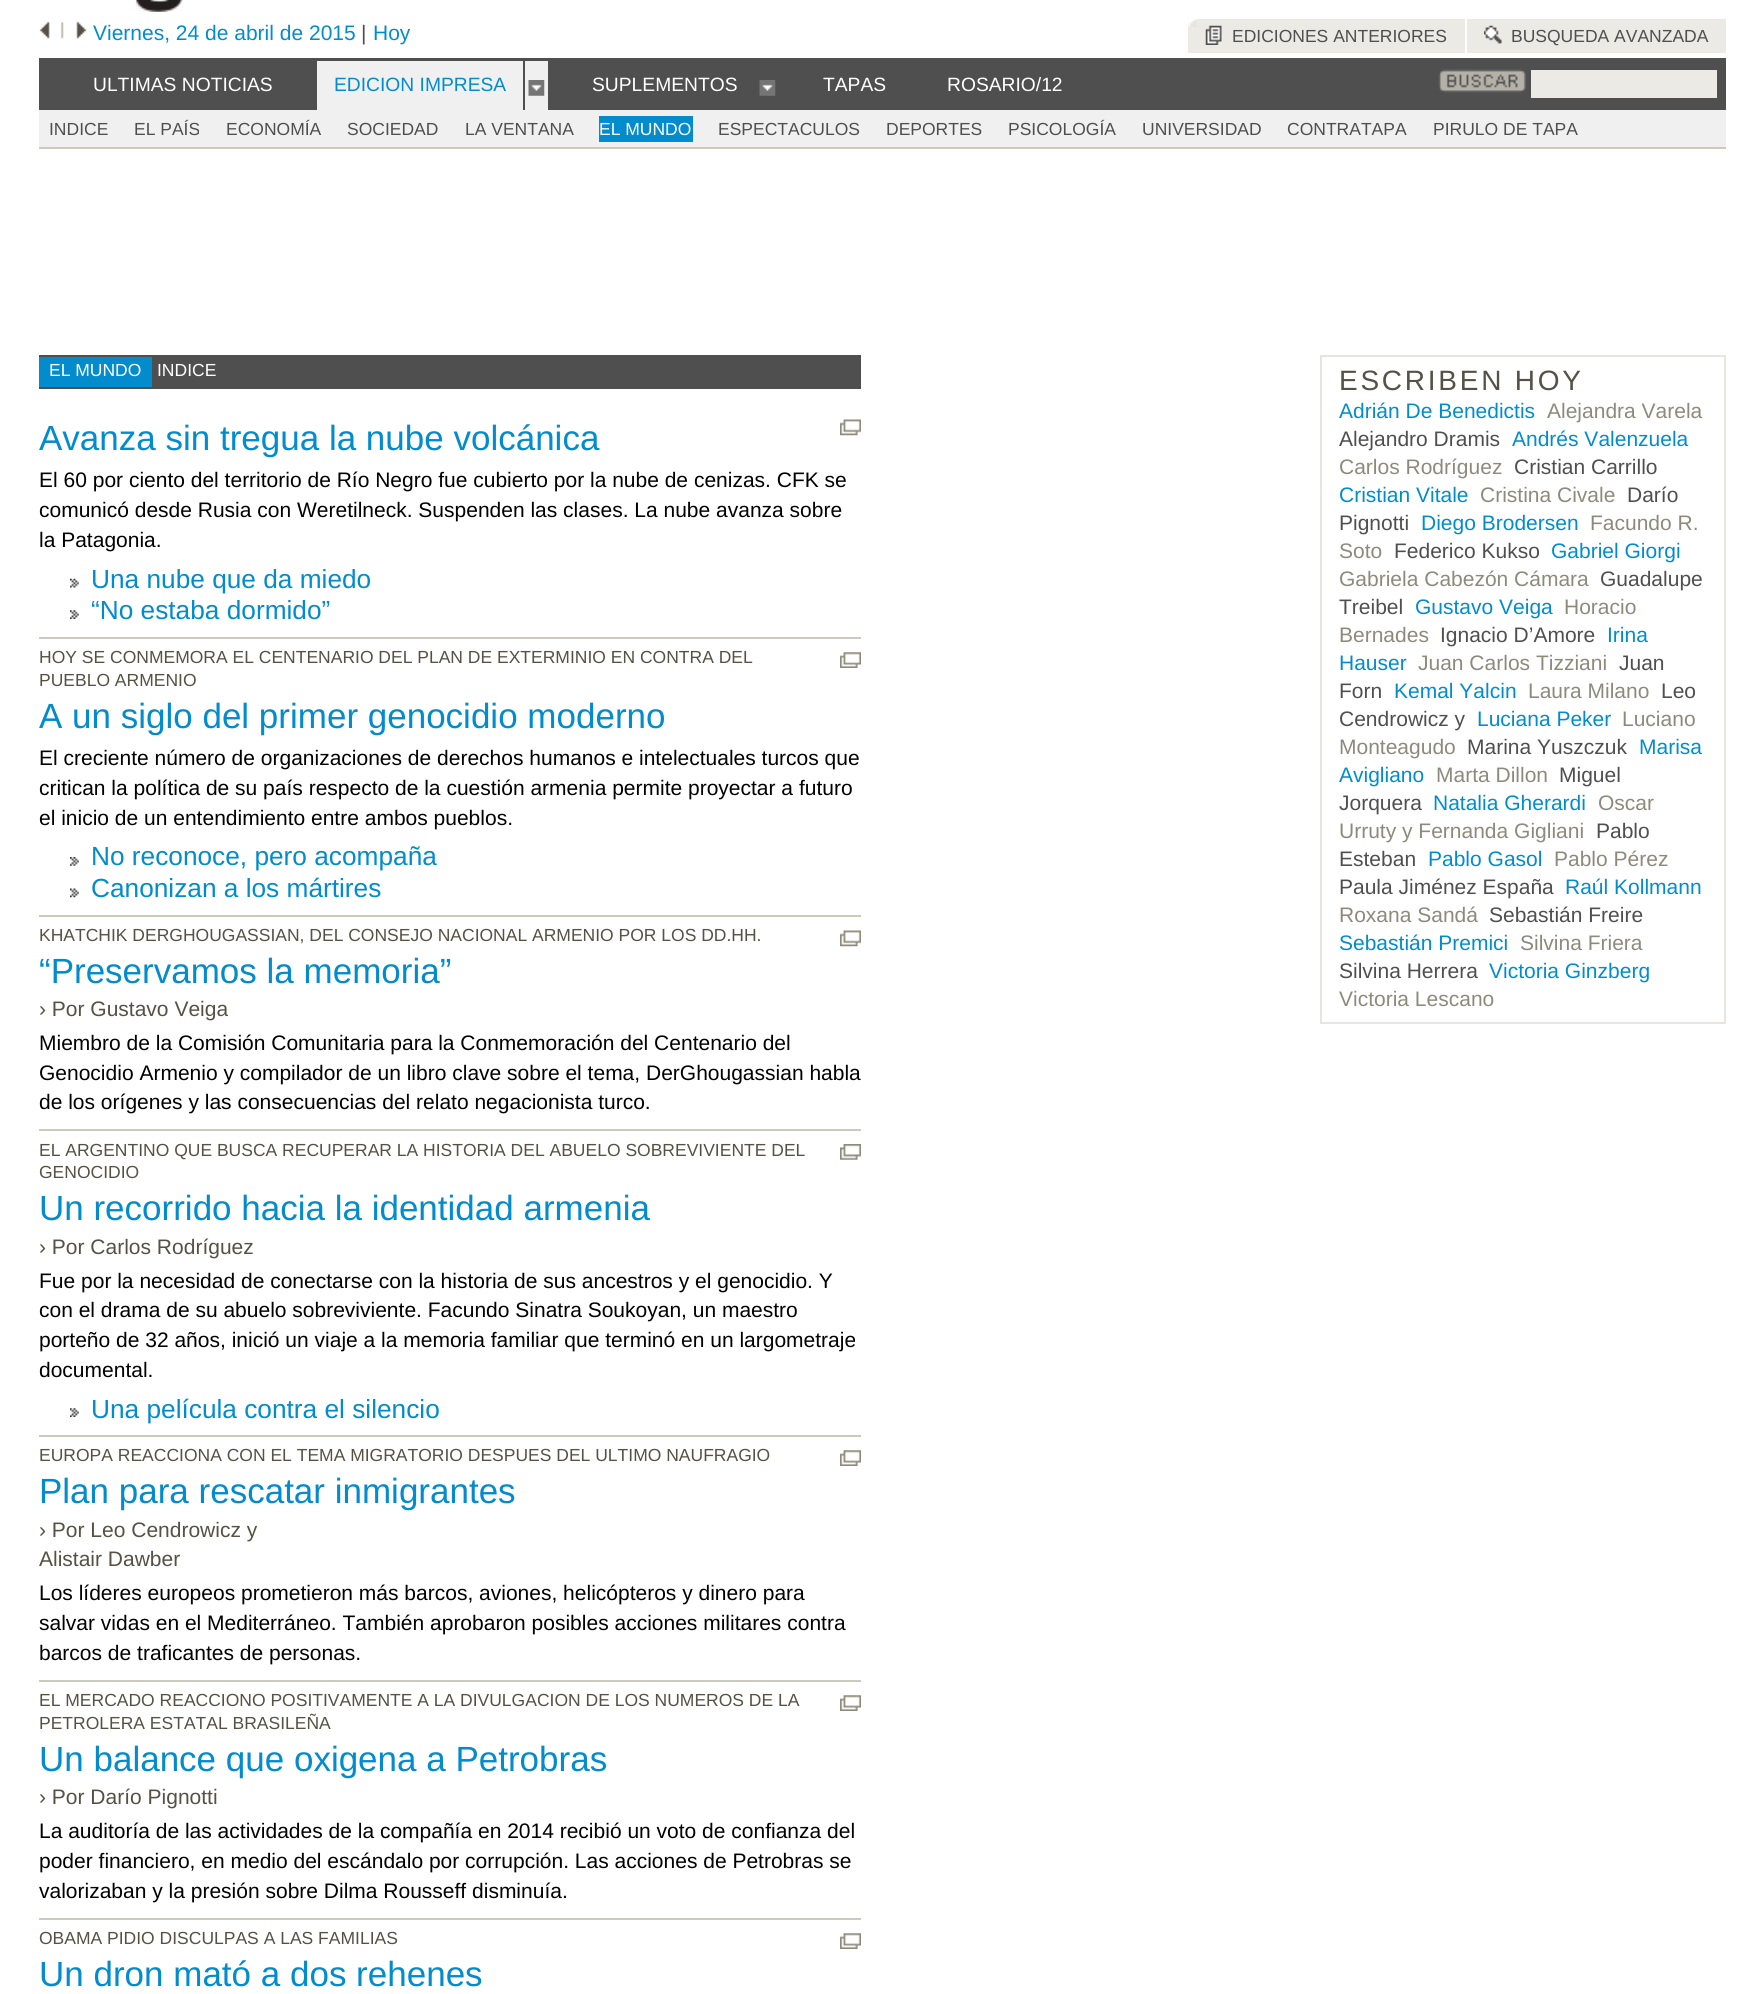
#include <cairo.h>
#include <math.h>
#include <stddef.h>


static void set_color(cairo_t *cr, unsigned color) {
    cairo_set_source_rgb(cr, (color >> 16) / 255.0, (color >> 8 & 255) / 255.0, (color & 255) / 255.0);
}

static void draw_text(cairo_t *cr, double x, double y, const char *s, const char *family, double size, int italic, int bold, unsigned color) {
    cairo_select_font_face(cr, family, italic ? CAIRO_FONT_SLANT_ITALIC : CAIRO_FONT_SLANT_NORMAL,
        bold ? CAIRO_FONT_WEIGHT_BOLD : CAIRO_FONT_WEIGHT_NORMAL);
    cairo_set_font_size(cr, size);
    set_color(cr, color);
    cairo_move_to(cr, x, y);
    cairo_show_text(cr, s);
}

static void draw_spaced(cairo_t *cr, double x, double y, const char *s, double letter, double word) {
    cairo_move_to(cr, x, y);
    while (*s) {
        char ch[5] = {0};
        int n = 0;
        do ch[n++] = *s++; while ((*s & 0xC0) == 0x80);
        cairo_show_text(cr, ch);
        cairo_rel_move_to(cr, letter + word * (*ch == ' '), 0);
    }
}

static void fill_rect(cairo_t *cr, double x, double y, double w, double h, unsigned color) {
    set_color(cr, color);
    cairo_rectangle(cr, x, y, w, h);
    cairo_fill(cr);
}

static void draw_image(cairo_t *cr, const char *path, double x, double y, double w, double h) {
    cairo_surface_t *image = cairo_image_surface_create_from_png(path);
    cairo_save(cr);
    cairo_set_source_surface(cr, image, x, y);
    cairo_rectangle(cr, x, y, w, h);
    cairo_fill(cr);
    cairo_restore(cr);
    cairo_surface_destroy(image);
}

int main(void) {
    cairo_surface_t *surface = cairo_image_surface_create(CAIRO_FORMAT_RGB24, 1764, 1994);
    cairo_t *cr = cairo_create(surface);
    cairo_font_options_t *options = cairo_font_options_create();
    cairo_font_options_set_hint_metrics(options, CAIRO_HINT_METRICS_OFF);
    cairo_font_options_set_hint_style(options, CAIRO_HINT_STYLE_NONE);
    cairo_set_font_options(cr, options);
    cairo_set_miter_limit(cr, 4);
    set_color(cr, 0xFFFFFF);
    cairo_paint(cr);
    draw_image(cr, "assets/img1.png", 135, 0, 48, 12);
    draw_image(cr, "assets/img2.png", 39, 21, 11, 18);
    draw_image(cr, "assets/img3.png", 60, 22, 4, 17);
    draw_image(cr, "assets/img4.png", 76, 21, 11, 18);
    draw_text(cr, 93, 40, "Viernes, 24 de abril de 2015", "Liberation Sans", 21, 0, 0, 0x028CCD);
    draw_text(cr, 361, 40, "|", "Liberation Sans", 21, 0, 0, 0x504F4F);
    draw_text(cr, 373, 40, "Hoy", "Liberation Sans", 21, 0, 0, 0x028CCD);
    fill_rect(cr, 1188, 19, 277, 34, 0xEBEAE5);
    draw_image(cr, "assets/img5.png", 1188, 18, 9, 9);
    draw_image(cr, "assets/img6.png", 1205, 25, 17, 20);
    draw_text(cr, 1232, 42, "EDICIONES ANTERIORES", "Liberation Sans", 17.5, 0, 0, 0x504F4F);
    fill_rect(cr, 1467, 19, 259, 34, 0xEBEAE5);
    draw_image(cr, "assets/img7.png", 1484, 25, 18, 19);
    draw_text(cr, 1511, 42, "BUSQUEDA AVANZADA", "Liberation Sans", 17.5, 0, 0, 0x504F4F);
    fill_rect(cr, 39, 58, 1687, 52, 0x504F4F);
    draw_text(cr, 93, 91, "ULTIMAS NOTICIAS", "Liberation Sans", 19.25, 0, 0, 0xFFFFFF);
    fill_rect(cr, 317, 61, 206, 49, 0xF0F0F0);
    draw_text(cr, 334, 91, "EDICION IMPRESA", "Liberation Sans", 19.25, 0, 0, 0x028CCD);
    fill_rect(cr, 525, 61, 23, 49, 0xF0F0F0);
    draw_image(cr, "assets/img8.png", 528, 80, 17, 16);
    draw_text(cr, 592, 91, "SUPLEMENTOS", "Liberation Sans", 19.25, 0, 0, 0xFFFFFF);
    draw_image(cr, "assets/img9.png", 759, 80, 17, 16);
    draw_text(cr, 823, 91, "TAPAS", "Liberation Sans", 19.25, 0, 0, 0xFFFFFF);
    draw_text(cr, 947, 91, "ROSARIO/12", "Liberation Sans", 19.25, 0, 0, 0xFFFFFF);
    draw_image(cr, "assets/img10.png", 1438, 69, 88, 24);
    fill_rect(cr, 1531, 70, 186, 28, 0xEBEAE5);
    fill_rect(cr, 39, 110, 1687, 37, 0xF0F0F0);
    fill_rect(cr, 39, 147, 1687, 2, 0xCCC9BD);
    draw_text(cr, 49, 135, "INDICE", "Liberation Sans", 17.5, 0, 0, 0x504F4F);
    draw_text(cr, 134, 135, "EL PAÍS", "Liberation Sans", 17.5, 0, 0, 0x504F4F);
    draw_text(cr, 226, 135, "ECONOMÍA", "Liberation Sans", 17.5, 0, 0, 0x504F4F);
    draw_text(cr, 347, 135, "SOCIEDAD", "Liberation Sans", 17.5, 0, 0, 0x504F4F);
    draw_text(cr, 465, 135, "LA VENTANA", "Liberation Sans", 17.5, 0, 0, 0x504F4F);
    fill_rect(cr, 599, 116, 94, 26, 0x028CCD);
    draw_text(cr, 599, 135, "EL MUNDO", "Liberation Sans", 17.5, 0, 0, 0xFFFFFF);
    draw_text(cr, 718, 135, "ESPECTACULOS", "Liberation Sans", 17.5, 0, 0, 0x504F4F);
    draw_text(cr, 886, 135, "DEPORTES", "Liberation Sans", 17.5, 0, 0, 0x504F4F);
    draw_text(cr, 1008, 135, "PSICOLOGÍA", "Liberation Sans", 17.5, 0, 0, 0x504F4F);
    draw_text(cr, 1142, 135, "UNIVERSIDAD", "Liberation Sans", 17.5, 0, 0, 0x504F4F);
    draw_text(cr, 1287, 135, "CONTRATAPA", "Liberation Sans", 17.5, 0, 0, 0x504F4F);
    draw_text(cr, 1433, 135, "PIRULO DE TAPA", "Liberation Sans", 17.5, 0, 0, 0x504F4F);
    fill_rect(cr, 39, 355, 822, 34, 0x504F4F);
    fill_rect(cr, 39, 357, 113, 30, 0x028CCD);
    draw_text(cr, 49, 376, "EL MUNDO", "Liberation Sans", 17.5, 0, 0, 0xFFFFFF);
    draw_text(cr, 157, 376, "INDICE", "Liberation Sans", 17.5, 0, 0, 0xFFFFFF);
    fill_rect(cr, 39, 637, 822, 2, 0xCCC9BD);
    draw_text(cr, 39, 450, "Avanza sin tregua la nube volcánica", "Liberation Sans", 35, 0, 0, 0x028CCD);
    draw_image(cr, "assets/img11.png", 840, 419, 21, 17);
    draw_text(cr, 39, 487, "El 60 por ciento del territorio de Río Negro fue cubierto por la nube de cenizas. CFK se", "Liberation Sans", 21, 0, 0, 0x000000);
    draw_text(cr, 39, 517, "comunicó desde Rusia con Weretilneck. Suspenden las clases. La nube avanza sobre", "Liberation Sans", 21, 0, 0, 0x000000);
    draw_text(cr, 39, 547, "la Patagonia.", "Liberation Sans", 21, 0, 0, 0x000000);
    draw_image(cr, "assets/img12.png", 70, 578, 9, 10);
    draw_text(cr, 91, 588, "Una nube que da miedo", "Liberation Sans", 26.25, 0, 0, 0x028CCD);
    draw_image(cr, "assets/img13.png", 70, 610, 9, 9);
    draw_text(cr, 91, 619, "“No estaba dormido”", "Liberation Sans", 26.25, 0, 0, 0x028CCD);
    fill_rect(cr, 39, 915, 822, 2, 0xCCC9BD);
    draw_text(cr, 39, 663, "HOY SE CONMEMORA EL CENTENARIO DEL PLAN DE EXTERMINIO EN CONTRA DEL", "Liberation Sans", 17.5, 0, 0, 0x565144);
    draw_text(cr, 39, 686, "PUEBLO ARMENIO", "Liberation Sans", 17.5, 0, 0, 0x565144);
    draw_image(cr, "assets/img14.png", 840, 652, 21, 16);
    draw_text(cr, 39, 728, "A un siglo del primer genocidio moderno", "Liberation Sans", 35, 0, 0, 0x028CCD);
    draw_text(cr, 39, 765, "El creciente número de organizaciones de derechos humanos e intelectuales turcos que", "Liberation Sans", 21, 0, 0, 0x000000);
    draw_text(cr, 39, 795, "critican la política de su país respecto de la cuestión armenia permite proyectar a futuro", "Liberation Sans", 21, 0, 0, 0x000000);
    draw_text(cr, 39, 825, "el inicio de un entendimiento entre ambos pueblos.", "Liberation Sans", 21, 0, 0, 0x000000);
    draw_image(cr, "assets/img15.png", 70, 857, 9, 9);
    draw_text(cr, 91, 865, "No reconoce, pero acompaña", "Liberation Sans", 26.25, 0, 0, 0x028CCD);
    draw_image(cr, "assets/img16.png", 70, 888, 9, 10);
    draw_text(cr, 91, 897, "Canonizan a los mártires", "Liberation Sans", 26.25, 0, 0, 0x028CCD);
    fill_rect(cr, 39, 1129, 822, 2, 0xCCC9BD);
    draw_text(cr, 39, 941, "KHATCHIK DERGHOUGASSIAN, DEL CONSEJO NACIONAL ARMENIO POR LOS DD.HH.", "Liberation Sans", 17.5, 0, 0, 0x565144);
    draw_image(cr, "assets/img11.png", 840, 930, 21, 17);
    draw_text(cr, 39, 983, "“Preservamos la memoria”", "Liberation Sans", 35, 0, 0, 0x028CCD);
    draw_text(cr, 39, 1016, "› Por Gustavo Veiga", "Liberation Sans", 21, 0, 0, 0x565144);
    draw_text(cr, 39, 1050, "Miembro de la Comisión Comunitaria para la Conmemoración del Centenario del", "Liberation Sans", 21, 0, 0, 0x000000);
    draw_text(cr, 39, 1080, "Genocidio Armenio y compilador de un libro clave sobre el tema, DerGhougassian habla", "Liberation Sans", 21, 0, 0, 0x000000);
    draw_text(cr, 39, 1109, "de los orígenes y las consecuencias del relato negacionista turco.", "Liberation Sans", 21, 0, 0, 0x000000);
    fill_rect(cr, 39, 1435, 822, 2, 0xCCC9BD);
    draw_text(cr, 39, 1156, "EL ARGENTINO QUE BUSCA RECUPERAR LA HISTORIA DEL ABUELO SOBREVIVIENTE DEL", "Liberation Sans", 17.5, 0, 0, 0x565144);
    draw_text(cr, 39, 1178, "GENOCIDIO", "Liberation Sans", 17.5, 0, 0, 0x565144);
    draw_image(cr, "assets/img17.png", 840, 1144, 21, 16);
    draw_text(cr, 39, 1220, "Un recorrido hacia la identidad armenia", "Liberation Sans", 35, 0, 0, 0x028CCD);
    draw_text(cr, 39, 1254, "› Por Carlos Rodríguez", "Liberation Sans", 21, 0, 0, 0x565144);
    draw_text(cr, 39, 1288, "Fue por la necesidad de conectarse con la historia de sus ancestros y el genocidio. Y", "Liberation Sans", 21, 0, 0, 0x000000);
    draw_text(cr, 39, 1317, "con el drama de su abuelo sobreviviente. Facundo Sinatra Soukoyan, un maestro", "Liberation Sans", 21, 0, 0, 0x000000);
    draw_text(cr, 39, 1347, "porteño de 32 años, inició un viaje a la memoria familiar que terminó en un largometraje", "Liberation Sans", 21, 0, 0, 0x000000);
    draw_text(cr, 39, 1377, "documental.", "Liberation Sans", 21, 0, 0, 0x000000);
    draw_image(cr, "assets/img13.png", 70, 1408, 9, 9);
    draw_text(cr, 91, 1418, "Una película contra el silencio", "Liberation Sans", 26.25, 0, 0, 0x028CCD);
    fill_rect(cr, 39, 1680, 822, 2, 0xCCC9BD);
    draw_text(cr, 39, 1461, "EUROPA REACCIONA CON EL TEMA MIGRATORIO DESPUES DEL ULTIMO NAUFRAGIO", "Liberation Sans", 17.5, 0, 0, 0x565144);
    draw_image(cr, "assets/img14.png", 840, 1450, 21, 16);
    draw_text(cr, 39, 1503, "Plan para rescatar inmigrantes", "Liberation Sans", 35, 0, 0, 0x028CCD);
    draw_text(cr, 39, 1537, "› Por Leo Cendrowicz y", "Liberation Sans", 21, 0, 0, 0x565144);
    draw_text(cr, 39, 1566, "Alistair Dawber", "Liberation Sans", 21, 0, 0, 0x565144);
    draw_text(cr, 39, 1600, "Los líderes europeos prometieron más barcos, aviones, helicópteros y dinero para", "Liberation Sans", 21, 0, 0, 0x000000);
    draw_text(cr, 39, 1630, "salvar vidas en el Mediterráneo. También aprobaron posibles acciones militares contra", "Liberation Sans", 21, 0, 0, 0x000000);
    draw_text(cr, 39, 1660, "barcos de traficantes de personas.", "Liberation Sans", 21, 0, 0, 0x000000);
    fill_rect(cr, 39, 1918, 822, 2, 0xCCC9BD);
    draw_text(cr, 39, 1706, "EL MERCADO REACCIONO POSITIVAMENTE A LA DIVULGACION DE LOS NUMEROS DE LA", "Liberation Sans", 17.5, 0, 0, 0x565144);
    draw_text(cr, 39, 1729, "PETROLERA ESTATAL BRASILEÑA", "Liberation Sans", 17.5, 0, 0, 0x565144);
    draw_image(cr, "assets/img14.png", 840, 1695, 21, 16);
    draw_text(cr, 39, 1771, "Un balance que oxigena a Petrobras", "Liberation Sans", 35, 0, 0, 0x028CCD);
    draw_text(cr, 39, 1804, "› Por Darío Pignotti", "Liberation Sans", 21, 0, 0, 0x565144);
    draw_text(cr, 39, 1838, "La auditoría de las actividades de la compañía en 2014 recibió un voto de confianza del", "Liberation Sans", 21, 0, 0, 0x000000);
    draw_text(cr, 39, 1868, "poder financiero, en medio del escándalo por corrupción. Las acciones de Petrobras se", "Liberation Sans", 21, 0, 0, 0x000000);
    draw_text(cr, 39, 1898, "valorizaban y la presión sobre Dilma Rousseff disminuía.", "Liberation Sans", 21, 0, 0, 0x000000);
    draw_text(cr, 39, 1944, "OBAMA PIDIO DISCULPAS A LAS FAMILIAS", "Liberation Sans", 17.5, 0, 0, 0x565144);
    draw_image(cr, "assets/img14.png", 840, 1933, 21, 16);
    draw_text(cr, 39, 1986, "Un dron mató a dos rehenes", "Liberation Sans", 35, 0, 0, 0x028CCD);
    cairo_rectangle(cr, 1321, 356, 404, 667);
    set_color(cr, 0xE6E5DF);
    cairo_stroke(cr);
    cairo_set_font_size(cr, 28);
    set_color(cr, 0x565144);
    draw_spaced(cr, 1339, 390, "ESCRIBEN HOY", 2.75, 0);
    draw_text(cr, 1339, 418, "Adrián De Benedictis", "Liberation Sans", 21, 0, 0, 0x028CCD);
    draw_text(cr, 1547, 418, "Alejandra Varela", "Liberation Sans", 21, 0, 0, 0x8E8A7B);
    draw_text(cr, 1339, 446, "Alejandro Dramis", "Liberation Sans", 21, 0, 0, 0x504F4F);
    draw_text(cr, 1512, 446, "Andrés Valenzuela", "Liberation Sans", 21, 0, 0, 0x028CCD);
    draw_text(cr, 1339, 474, "Carlos Rodríguez", "Liberation Sans", 21, 0, 0, 0x8E8A7B);
    draw_text(cr, 1514, 474, "Cristian Carrillo", "Liberation Sans", 21, 0, 0, 0x504F4F);
    draw_text(cr, 1339, 502, "Cristian Vitale", "Liberation Sans", 21, 0, 0, 0x028CCD);
    draw_text(cr, 1480, 502, "Cristina Civale", "Liberation Sans", 21, 0, 0, 0x8E8A7B);
    draw_text(cr, 1627, 502, "Darío", "Liberation Sans", 21, 0, 0, 0x504F4F);
    draw_text(cr, 1339, 530, "Pignotti", "Liberation Sans", 21, 0, 0, 0x504F4F);
    draw_text(cr, 1421, 530, "Diego Brodersen", "Liberation Sans", 21, 0, 0, 0x028CCD);
    draw_text(cr, 1590, 530, "Facundo R.", "Liberation Sans", 21, 0, 0, 0x8E8A7B);
    draw_text(cr, 1339, 558, "Soto", "Liberation Sans", 21, 0, 0, 0x8E8A7B);
    draw_text(cr, 1394, 558, "Federico Kukso", "Liberation Sans", 21, 0, 0, 0x504F4F);
    draw_text(cr, 1551, 558, "Gabriel Giorgi", "Liberation Sans", 21, 0, 0, 0x028CCD);
    draw_text(cr, 1339, 586, "Gabriela Cabezón Cámara", "Liberation Sans", 21, 0, 0, 0x8E8A7B);
    draw_text(cr, 1600, 586, "Guadalupe", "Liberation Sans", 21, 0, 0, 0x504F4F);
    draw_text(cr, 1339, 614, "Treibel", "Liberation Sans", 21, 0, 0, 0x504F4F);
    draw_text(cr, 1415, 614, "Gustavo Veiga", "Liberation Sans", 21, 0, 0, 0x028CCD);
    draw_text(cr, 1564, 614, "Horacio", "Liberation Sans", 21, 0, 0, 0x8E8A7B);
    draw_text(cr, 1339, 642, "Bernades", "Liberation Sans", 21, 0, 0, 0x8E8A7B);
    draw_text(cr, 1440, 642, "Ignacio D’Amore", "Liberation Sans", 21, 0, 0, 0x504F4F);
    draw_text(cr, 1607, 642, "Irina", "Liberation Sans", 21, 0, 0, 0x028CCD);
    draw_text(cr, 1339, 670, "Hauser", "Liberation Sans", 21, 0, 0, 0x028CCD);
    draw_text(cr, 1418, 670, "Juan Carlos Tizziani", "Liberation Sans", 21, 0, 0, 0x8E8A7B);
    draw_text(cr, 1619, 670, "Juan", "Liberation Sans", 21, 0, 0, 0x504F4F);
    draw_text(cr, 1339, 698, "Forn", "Liberation Sans", 21, 0, 0, 0x504F4F);
    draw_text(cr, 1394, 698, "Kemal Yalcin", "Liberation Sans", 21, 0, 0, 0x028CCD);
    draw_text(cr, 1528, 698, "Laura Milano", "Liberation Sans", 21, 0, 0, 0x8E8A7B);
    draw_text(cr, 1661, 698, "Leo", "Liberation Sans", 21, 0, 0, 0x504F4F);
    draw_text(cr, 1339, 726, "Cendrowicz y", "Liberation Sans", 21, 0, 0, 0x504F4F);
    draw_text(cr, 1477, 726, "Luciana Peker", "Liberation Sans", 21, 0, 0, 0x028CCD);
    draw_text(cr, 1622, 726, "Luciano", "Liberation Sans", 21, 0, 0, 0x8E8A7B);
    draw_text(cr, 1339, 754, "Monteagudo", "Liberation Sans", 21, 0, 0, 0x8E8A7B);
    draw_text(cr, 1467, 754, "Marina Yuszczuk", "Liberation Sans", 21, 0, 0, 0x504F4F);
    draw_text(cr, 1639, 754, "Marisa", "Liberation Sans", 21, 0, 0, 0x028CCD);
    draw_text(cr, 1339, 782, "Avigliano", "Liberation Sans", 21, 0, 0, 0x028CCD);
    draw_text(cr, 1436, 782, "Marta Dillon", "Liberation Sans", 21, 0, 0, 0x8E8A7B);
    draw_text(cr, 1559, 782, "Miguel", "Liberation Sans", 21, 0, 0, 0x504F4F);
    draw_text(cr, 1339, 810, "Jorquera", "Liberation Sans", 21, 0, 0, 0x504F4F);
    draw_text(cr, 1433, 810, "Natalia Gherardi", "Liberation Sans", 21, 0, 0, 0x028CCD);
    draw_text(cr, 1598, 810, "Oscar", "Liberation Sans", 21, 0, 0, 0x8E8A7B);
    draw_text(cr, 1339, 838, "Urruty y Fernanda Gigliani", "Liberation Sans", 21, 0, 0, 0x8E8A7B);
    draw_text(cr, 1596, 838, "Pablo", "Liberation Sans", 21, 0, 0, 0x504F4F);
    draw_text(cr, 1339, 866, "Esteban", "Liberation Sans", 21, 0, 0, 0x504F4F);
    draw_text(cr, 1428, 866, "Pablo Gasol", "Liberation Sans", 21, 0, 0, 0x028CCD);
    draw_text(cr, 1554, 866, "Pablo Pérez", "Liberation Sans", 21, 0, 0, 0x8E8A7B);
    draw_text(cr, 1339, 894, "Paula Jiménez España", "Liberation Sans", 21, 0, 0, 0x504F4F);
    draw_text(cr, 1565, 894, "Raúl Kollmann", "Liberation Sans", 21, 0, 0, 0x028CCD);
    draw_text(cr, 1339, 922, "Roxana Sandá", "Liberation Sans", 21, 0, 0, 0x8E8A7B);
    draw_text(cr, 1489, 922, "Sebastián Freire", "Liberation Sans", 21, 0, 0, 0x504F4F);
    draw_text(cr, 1339, 950, "Sebastián Premici", "Liberation Sans", 21, 0, 0, 0x028CCD);
    draw_text(cr, 1520, 950, "Silvina Friera", "Liberation Sans", 21, 0, 0, 0x8E8A7B);
    draw_text(cr, 1339, 978, "Silvina Herrera", "Liberation Sans", 21, 0, 0, 0x504F4F);
    draw_text(cr, 1489, 978, "Victoria Ginzberg", "Liberation Sans", 21, 0, 0, 0x028CCD);
    draw_text(cr, 1339, 1006, "Victoria Lescano", "Liberation Sans", 21, 0, 0, 0x8E8A7B);
    cairo_surface_write_to_png(surface, "output.png");
    cairo_font_options_destroy(options);
    cairo_destroy(cr);
    cairo_surface_destroy(surface);
    return 0;
}
